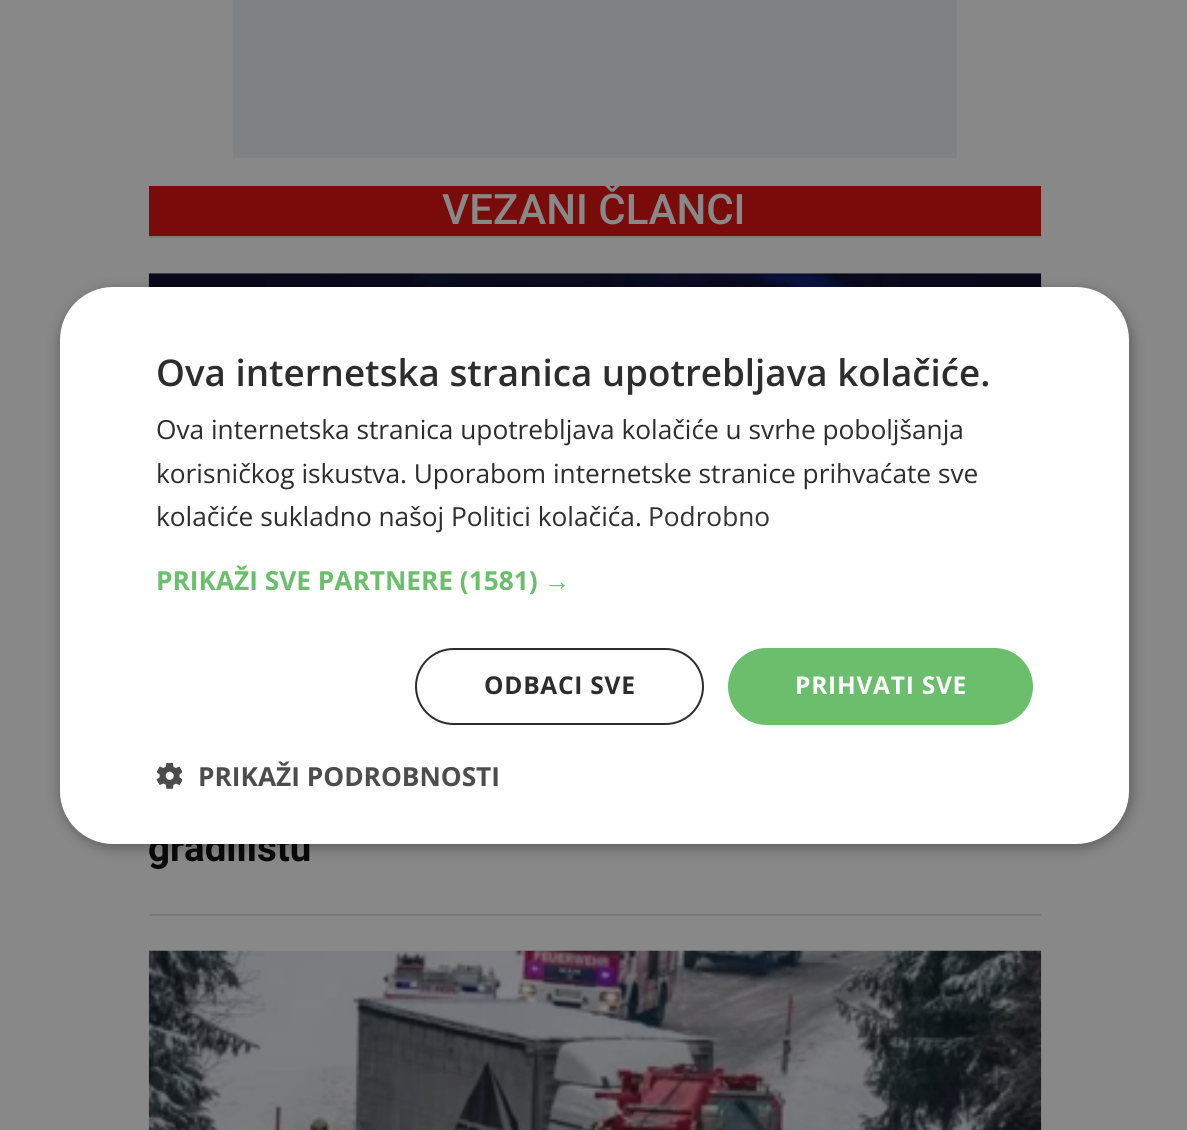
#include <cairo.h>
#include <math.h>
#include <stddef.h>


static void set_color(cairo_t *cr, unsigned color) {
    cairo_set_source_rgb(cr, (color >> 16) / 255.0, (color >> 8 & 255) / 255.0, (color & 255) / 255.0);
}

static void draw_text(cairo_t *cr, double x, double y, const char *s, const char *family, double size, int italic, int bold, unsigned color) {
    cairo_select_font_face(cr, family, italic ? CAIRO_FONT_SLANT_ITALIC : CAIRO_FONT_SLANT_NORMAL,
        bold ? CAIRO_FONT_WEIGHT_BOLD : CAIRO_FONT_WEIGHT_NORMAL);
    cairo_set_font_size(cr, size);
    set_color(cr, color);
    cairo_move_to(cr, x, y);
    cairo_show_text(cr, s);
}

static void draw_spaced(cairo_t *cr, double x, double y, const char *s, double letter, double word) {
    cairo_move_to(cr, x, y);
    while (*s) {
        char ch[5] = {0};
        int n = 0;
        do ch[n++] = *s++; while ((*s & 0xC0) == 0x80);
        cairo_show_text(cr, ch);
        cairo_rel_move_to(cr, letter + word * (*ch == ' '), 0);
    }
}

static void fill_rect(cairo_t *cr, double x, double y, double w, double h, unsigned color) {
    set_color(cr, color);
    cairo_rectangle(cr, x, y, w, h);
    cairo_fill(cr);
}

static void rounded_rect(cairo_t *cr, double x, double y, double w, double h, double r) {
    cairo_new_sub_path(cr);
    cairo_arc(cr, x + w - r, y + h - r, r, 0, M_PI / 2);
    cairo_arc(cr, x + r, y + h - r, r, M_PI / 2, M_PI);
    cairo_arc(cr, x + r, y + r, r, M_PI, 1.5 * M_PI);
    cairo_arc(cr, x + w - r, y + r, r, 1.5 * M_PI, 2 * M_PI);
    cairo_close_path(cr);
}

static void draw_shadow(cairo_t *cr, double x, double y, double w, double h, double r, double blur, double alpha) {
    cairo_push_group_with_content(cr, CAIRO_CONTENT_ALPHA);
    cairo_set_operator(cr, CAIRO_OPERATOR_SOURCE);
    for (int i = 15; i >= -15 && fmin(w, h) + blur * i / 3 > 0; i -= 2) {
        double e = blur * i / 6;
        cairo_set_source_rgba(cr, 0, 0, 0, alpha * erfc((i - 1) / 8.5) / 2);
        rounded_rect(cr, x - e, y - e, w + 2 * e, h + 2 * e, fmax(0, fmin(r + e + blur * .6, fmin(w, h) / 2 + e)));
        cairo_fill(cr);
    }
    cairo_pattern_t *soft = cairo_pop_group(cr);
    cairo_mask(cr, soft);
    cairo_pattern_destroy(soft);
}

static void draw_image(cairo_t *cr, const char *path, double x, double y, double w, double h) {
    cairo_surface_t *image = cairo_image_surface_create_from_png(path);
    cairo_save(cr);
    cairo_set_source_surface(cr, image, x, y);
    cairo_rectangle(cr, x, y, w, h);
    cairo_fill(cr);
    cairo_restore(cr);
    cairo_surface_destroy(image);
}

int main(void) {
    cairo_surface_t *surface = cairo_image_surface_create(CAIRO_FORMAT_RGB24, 1187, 1130);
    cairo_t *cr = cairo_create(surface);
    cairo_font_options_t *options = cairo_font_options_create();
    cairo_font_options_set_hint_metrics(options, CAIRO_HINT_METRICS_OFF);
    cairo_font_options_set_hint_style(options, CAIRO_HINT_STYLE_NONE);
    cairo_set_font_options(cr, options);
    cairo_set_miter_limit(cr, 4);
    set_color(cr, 0x888888);
    cairo_paint(cr);
    fill_rect(cr, 233, 0, 724, 158, 0x808182);
    fill_rect(cr, 149, 186, 892, 50, 0x790C0B);
    cairo_save(cr);
    cairo_rectangle(cr, 149, 186, 892, 50);
    cairo_clip(cr);
    draw_text(cr, 442, 224, "VEZANI ČLANCI", "Roboto Medium", 42, 0, 0, 0x888888);
    cairo_restore(cr);
    fill_rect(cr, 149, 236, 892, 2, 0x7A7A7A);
    fill_rect(cr, 149, 914, 892, 2, 0x7A7A7A);
    draw_image(cr, "assets/img1.png", 148, 273, 894, 14);
    draw_text(cr, 148, 861, "gradilištu", "Roboto", 38.5, 0, 1, 0x090909);
    draw_image(cr, "assets/img2.png", 148, 950, 894, 180);
    set_color(cr, 0x000000);
    draw_shadow(cr, 61, 291, 1070, 556, 53, 7, 0.35);
    set_color(cr, 0xFFFFFF);
    rounded_rect(cr, 60, 287, 1069, 557, 53);
    cairo_fill(cr);
    draw_text(cr, 156, 386, "Ova internetska stranica upotrebljava kolačiće.", "Open Sans SemiBold", 36.75, 0, 0, 0x2D2D2D);
    draw_text(cr, 156, 439, "Ova internetska stranica upotrebljava kolačiće u svrhe poboljšanja", "Open Sans", 26.25, 0, 0, 0x2D2D2D);
    draw_text(cr, 156, 483, "korisničkog iskustva. Uporabom internetske stranice prihvaćate sve", "Open Sans", 26.25, 0, 0, 0x2D2D2D);
    draw_text(cr, 156, 526, "kolačiće sukladno našoj Politici kolačića.", "Open Sans", 26.25, 0, 0, 0x2D2D2D);
    draw_text(cr, 648, 526, "Podrobno", "Open Sans", 26.25, 0, 0, 0x333333);
    draw_text(cr, 156, 590, "PRIKAŽI SVE PARTNERE (1581)", "Open Sans", 26.25, 0, 1, 0x6BBE6B);
    draw_text(cr, 544, 590, "→", "Liberation Sans", 26.25, 0, 1, 0x6BBE6B);
    rounded_rect(cr, 416, 649, 287, 75, 37.5);
    set_color(cr, 0x2D2D2D);
    cairo_stroke(cr);
    cairo_select_font_face(cr, "Open Sans", CAIRO_FONT_SLANT_NORMAL, CAIRO_FONT_WEIGHT_BOLD);
    cairo_set_font_size(cr, 24.5);
    draw_spaced(cr, 484, 694, "ODBACI SVE", 0.75, 0);
    set_color(cr, 0x6BBE6B);
    rounded_rect(cr, 728, 648, 305, 77, 38.5);
    cairo_fill(cr);
    set_color(cr, 0xFFFFFF);
    draw_spaced(cr, 795, 694, "PRIHVATI SVE", 0.75, 0);
    draw_image(cr, "assets/img3.png", 156, 763, 26, 26);
    draw_text(cr, 198, 786, "PRIKAŽI PODROBNOSTI", "Open Sans", 26.25, 0, 1, 0x4D4D4D);
    cairo_surface_write_to_png(surface, "output.png");
    cairo_font_options_destroy(options);
    cairo_destroy(cr);
    cairo_surface_destroy(surface);
    return 0;
}
